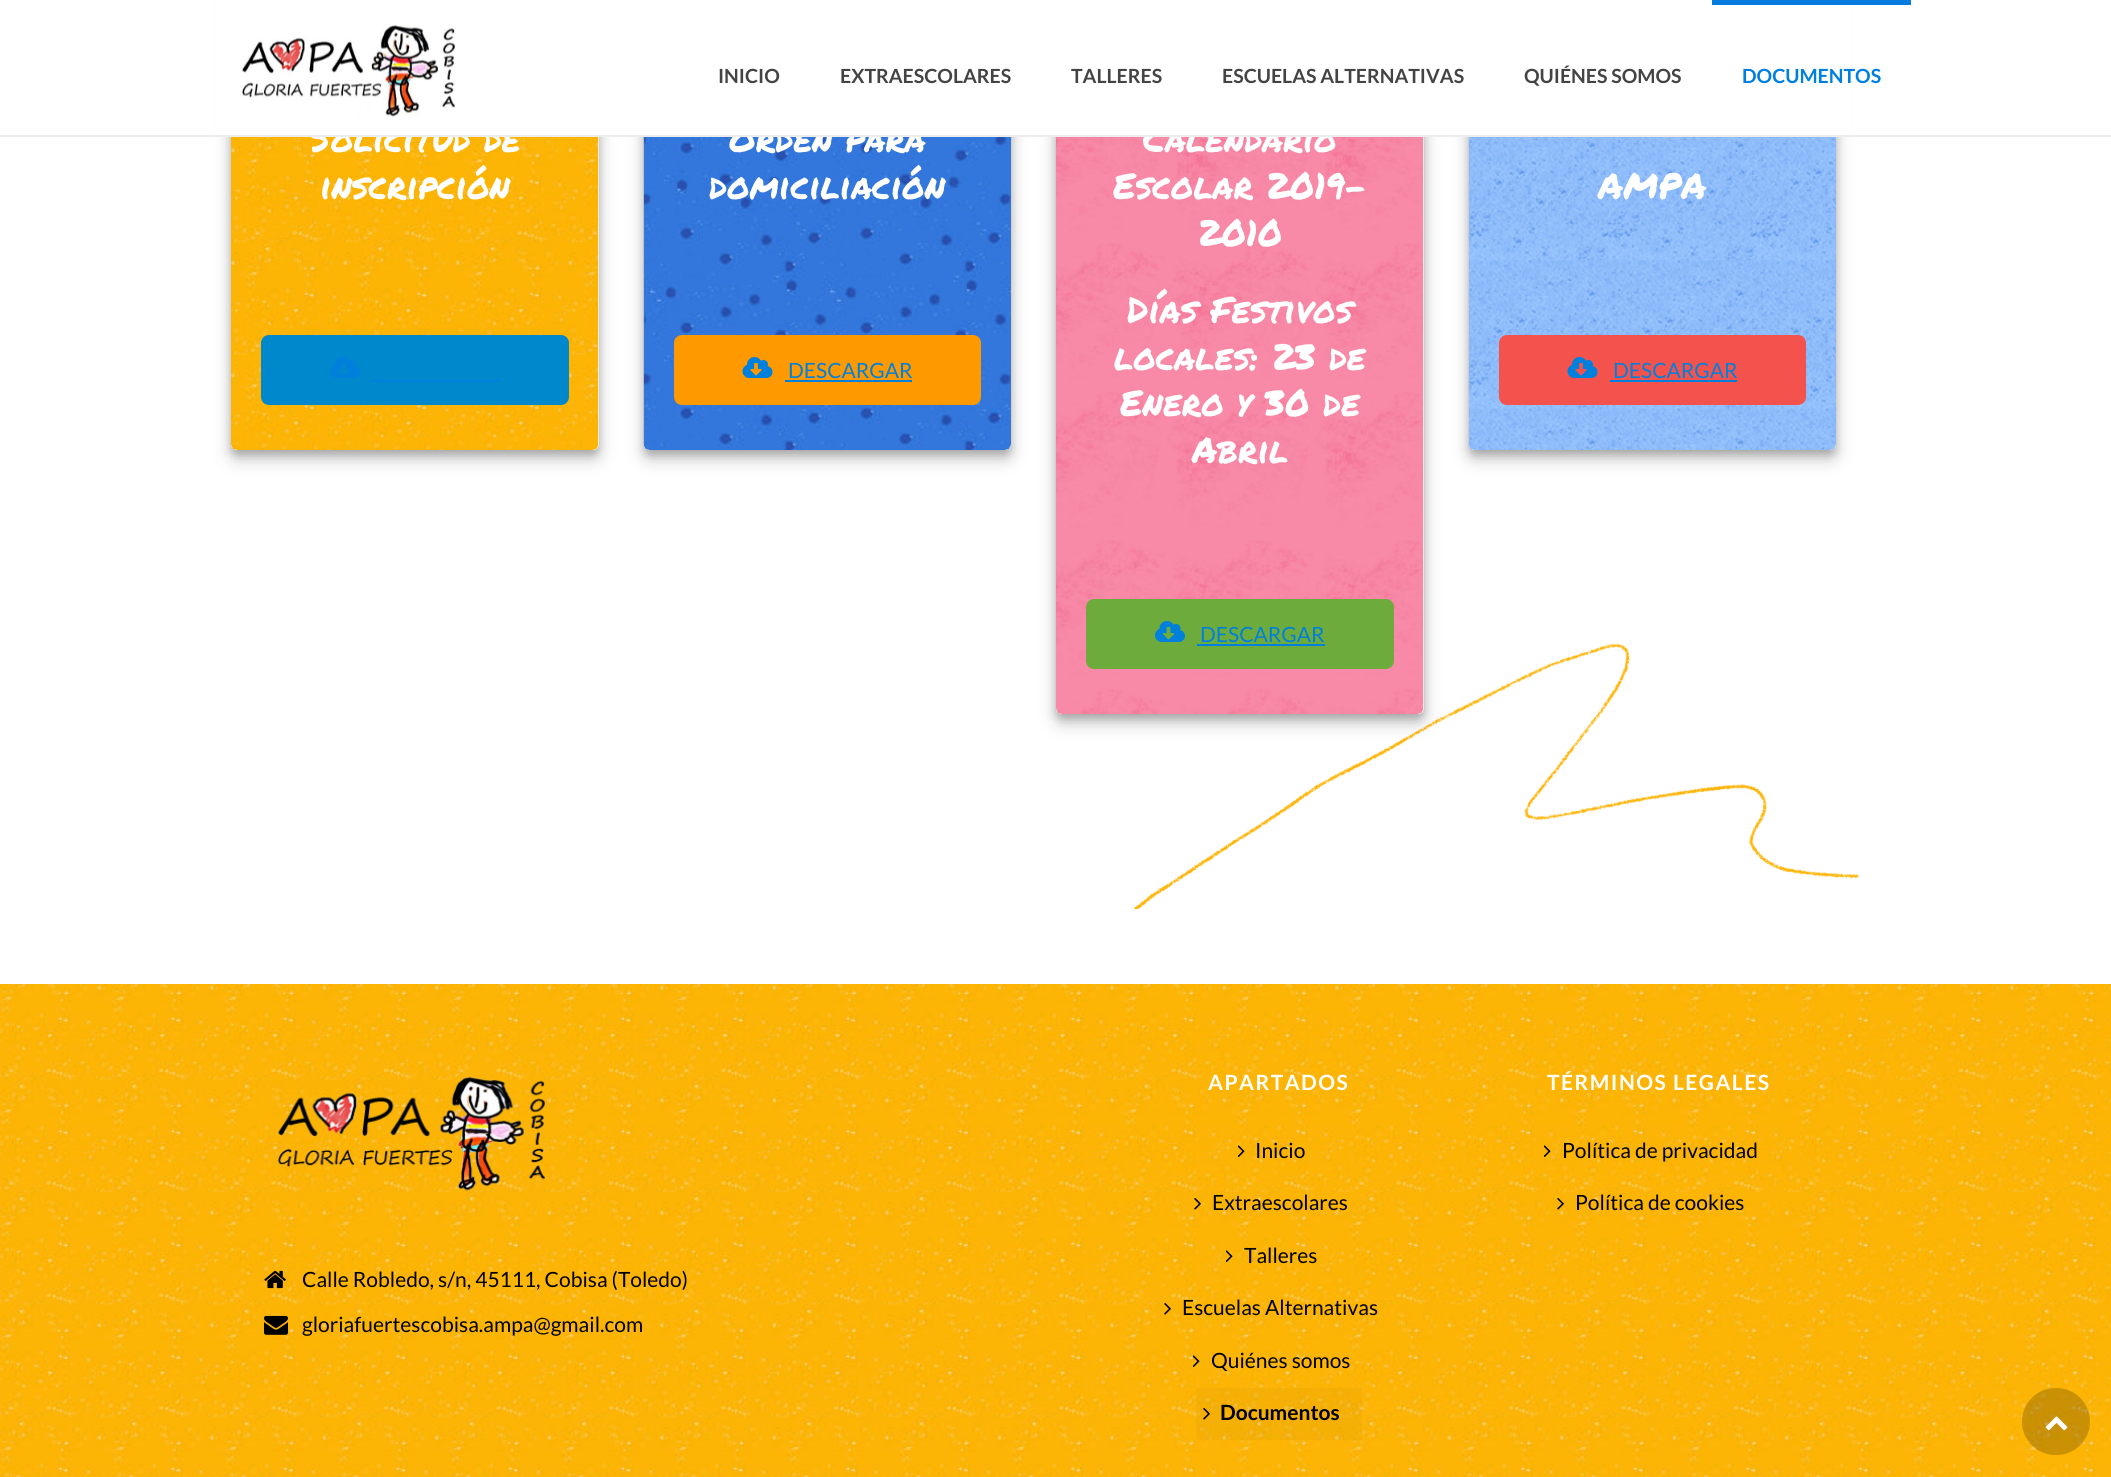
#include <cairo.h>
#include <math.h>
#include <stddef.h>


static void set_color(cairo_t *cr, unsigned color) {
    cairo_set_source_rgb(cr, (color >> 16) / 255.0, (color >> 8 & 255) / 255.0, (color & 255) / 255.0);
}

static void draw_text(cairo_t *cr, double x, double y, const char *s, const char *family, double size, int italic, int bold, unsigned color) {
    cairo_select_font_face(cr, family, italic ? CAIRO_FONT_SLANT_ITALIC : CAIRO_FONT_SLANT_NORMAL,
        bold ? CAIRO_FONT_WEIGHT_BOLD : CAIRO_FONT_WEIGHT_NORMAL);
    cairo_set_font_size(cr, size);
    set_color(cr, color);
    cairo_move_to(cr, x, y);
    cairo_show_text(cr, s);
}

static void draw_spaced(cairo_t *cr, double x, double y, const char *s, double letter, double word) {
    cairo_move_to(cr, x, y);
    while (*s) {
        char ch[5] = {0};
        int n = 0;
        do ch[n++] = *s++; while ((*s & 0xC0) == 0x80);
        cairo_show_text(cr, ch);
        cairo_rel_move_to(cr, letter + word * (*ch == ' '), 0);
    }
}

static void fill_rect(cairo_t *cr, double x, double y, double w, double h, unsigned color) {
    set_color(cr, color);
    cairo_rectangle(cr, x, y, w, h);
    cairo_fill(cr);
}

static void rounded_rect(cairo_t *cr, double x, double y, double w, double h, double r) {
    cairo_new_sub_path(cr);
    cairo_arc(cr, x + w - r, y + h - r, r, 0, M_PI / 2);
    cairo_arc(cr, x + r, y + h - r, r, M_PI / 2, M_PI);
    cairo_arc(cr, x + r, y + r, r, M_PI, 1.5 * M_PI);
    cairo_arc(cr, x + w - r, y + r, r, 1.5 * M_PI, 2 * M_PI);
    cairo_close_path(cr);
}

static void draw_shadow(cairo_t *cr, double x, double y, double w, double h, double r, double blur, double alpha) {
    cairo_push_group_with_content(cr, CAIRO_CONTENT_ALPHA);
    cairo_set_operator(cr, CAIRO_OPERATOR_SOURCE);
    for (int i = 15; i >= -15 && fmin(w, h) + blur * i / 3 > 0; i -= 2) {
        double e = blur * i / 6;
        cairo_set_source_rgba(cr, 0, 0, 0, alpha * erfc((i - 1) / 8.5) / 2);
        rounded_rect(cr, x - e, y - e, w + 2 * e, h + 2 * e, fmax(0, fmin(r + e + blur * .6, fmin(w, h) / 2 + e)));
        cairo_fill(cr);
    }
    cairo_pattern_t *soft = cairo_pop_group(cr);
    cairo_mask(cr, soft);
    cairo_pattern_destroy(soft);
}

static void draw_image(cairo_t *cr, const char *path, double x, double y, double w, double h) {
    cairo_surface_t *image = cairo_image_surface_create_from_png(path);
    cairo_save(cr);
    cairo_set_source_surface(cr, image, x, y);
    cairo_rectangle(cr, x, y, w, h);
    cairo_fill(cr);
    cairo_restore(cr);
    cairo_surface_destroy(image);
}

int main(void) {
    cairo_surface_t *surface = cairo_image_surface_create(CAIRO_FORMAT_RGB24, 2111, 1477);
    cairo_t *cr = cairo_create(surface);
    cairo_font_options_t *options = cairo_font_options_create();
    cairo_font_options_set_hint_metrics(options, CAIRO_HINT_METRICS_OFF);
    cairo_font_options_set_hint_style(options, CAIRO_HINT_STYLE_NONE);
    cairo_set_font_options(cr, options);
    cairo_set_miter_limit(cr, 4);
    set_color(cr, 0xFFFFFF);
    cairo_paint(cr);
    set_color(cr, 0x000000);
    draw_shadow(cr, 231, -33, 368, 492, 6, 9, 0.2);
    draw_shadow(cr, 231, -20, 368, 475, 6, 4.5, 0.2);
    set_color(cr, 0xF7F7F7);
    rounded_rect(cr, 231, -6, 368, 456, 6);
    cairo_fill(cr);
    draw_image(cr, "assets/img3.png", 231, 137, 368, 313);
    draw_text(cr, 310, 152, "Solicitud de", "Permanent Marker", 36, 0, 0, 0xFFFFFF);
    set_color(cr, 0x000000);
    draw_shadow(cr, 644, -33, 367, 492, 6, 9, 0.2);
    draw_shadow(cr, 644, -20, 367, 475, 6, 4.5, 0.2);
    set_color(cr, 0xF7F7F7);
    rounded_rect(cr, 644, -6, 367, 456, 6);
    cairo_fill(cr);
    draw_image(cr, "assets/img5.png", 643, 137, 368, 313);
    draw_text(cr, 729, 152, "Orden para", "Permanent Marker", 36, 0, 0, 0xFFFFFF);
    draw_image(cr, "assets/img2.png", 1134, 643, 725, 266);
    set_color(cr, 0x000000);
    draw_shadow(cr, 1056, -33, 368, 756, 6, 9, 0.2);
    draw_shadow(cr, 1056, -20, 368, 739, 6, 4.5, 0.2);
    set_color(cr, 0xF7F7F7);
    rounded_rect(cr, 1056, -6, 368, 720, 6);
    cairo_fill(cr);
    draw_image(cr, "assets/img7.png", 1056, 137, 368, 577);
    draw_text(cr, 1143, 152, "Calendario", "Permanent Marker", 36, 0, 0, 0xFFFFFF);
    set_color(cr, 0x000000);
    draw_shadow(cr, 1469, -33, 367, 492, 6, 9, 0.2);
    draw_shadow(cr, 1469, -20, 367, 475, 6, 4.5, 0.2);
    set_color(cr, 0xF7F7F7);
    rounded_rect(cr, 1469, -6, 367, 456, 6);
    cairo_fill(cr);
    fill_rect(cr, 0, 135, 2111, 2, 0xEDEDED);
    fill_rect(cr, 216, 0, 1635, 135, 0xFFFFFF);
    draw_image(cr, "assets/img1.png", 241, 25, 215, 92);
    draw_text(cr, 718, 83, "INICIO", "Lato", 19.5, 0, 1, 0x444444);
    draw_text(cr, 840, 83, "EXTRAESCOLARES", "Lato", 19.5, 0, 1, 0x444444);
    draw_text(cr, 1071, 83, "TALLERES", "Lato", 19.5, 0, 1, 0x444444);
    draw_text(cr, 1222, 83, "ESCUELAS ALTERNATIVAS", "Lato", 19.5, 0, 1, 0x444444);
    draw_text(cr, 1524, 83, "QUIÉNES SOMOS", "Lato", 19.5, 0, 1, 0x444444);
    fill_rect(cr, 1712, 0, 199, 5, 0x057CDD);
    draw_text(cr, 1742, 83, "DOCUMENTOS", "Lato", 19.5, 0, 1, 0x0080DD);
    draw_text(cr, 320, 199, "inscripción", "Permanent Marker", 36, 0, 0, 0xFFFFFF);
    set_color(cr, 0x0088CC);
    rounded_rect(cr, 261, 335, 308, 70, 8);
    cairo_fill(cr);
    draw_image(cr, "assets/img4.png", 330, 357, 30, 21);
    fill_rect(cr, 372, 380, 128, 2, 0x0080DD);
    draw_text(cr, 709, 199, "domiciliación", "Permanent Marker", 36, 0, 0, 0xFFFFFF);
    set_color(cr, 0xFF9900);
    rounded_rect(cr, 674, 335, 307, 70, 8);
    cairo_fill(cr);
    draw_image(cr, "assets/img6.png", 742, 357, 31, 21);
    draw_text(cr, 788, 378, "DESCARGAR", "Lato", 21, 0, 0, 0x0080DD);
    fill_rect(cr, 785, 380, 127, 2, 0x0080DD);
    draw_text(cr, 1113, 199, "Escolar 2019-", "Permanent Marker", 36, 0, 0, 0xFFFFFF);
    draw_text(cr, 1198, 246, "2010", "Permanent Marker", 36, 0, 0, 0xFFFFFF);
    draw_text(cr, 1127, 323, "Días Festivos", "Permanent Marker", 36, 0, 0, 0xFFFFFF);
    draw_text(cr, 1114, 370, "locales: 23 de", "Permanent Marker", 36, 0, 0, 0xFFFFFF);
    draw_text(cr, 1120, 416, "Enero y 30 de", "Permanent Marker", 36, 0, 0, 0xFFFFFF);
    draw_text(cr, 1192, 463, "Abril", "Permanent Marker", 36, 0, 0, 0xFFFFFF);
    set_color(cr, 0x6DAB3C);
    rounded_rect(cr, 1086, 599, 308, 70, 8);
    cairo_fill(cr);
    draw_image(cr, "assets/img8.png", 1155, 621, 30, 21);
    draw_text(cr, 1200, 642, "DESCARGAR", "Lato", 21, 0, 0, 0x0080DD);
    fill_rect(cr, 1197, 644, 128, 2, 0x0080DD);
    draw_image(cr, "assets/img9.png", 1468, 137, 368, 313);
    draw_text(cr, 1598, 199, "AMPA", "Permanent Marker", 36, 0, 0, 0xFFFFFF);
    set_color(cr, 0xF4524D);
    rounded_rect(cr, 1499, 335, 307, 70, 8);
    cairo_fill(cr);
    draw_image(cr, "assets/img10.png", 1567, 357, 31, 21);
    draw_text(cr, 1613, 378, "DESCARGAR", "Lato", 21, 0, 0, 0x0080DD);
    fill_rect(cr, 1610, 380, 127, 2, 0x0080DD);
    draw_image(cr, "assets/img11.png", 0, 984, 2111, 493);
    draw_image(cr, "assets/img12.png", 278, 1077, 268, 114);
    draw_image(cr, "assets/img13.png", 264, 1270, 22, 19);
    draw_text(cr, 302, 1287, "Calle Robledo, s/n, 45111, Cobisa (Toledo)", "Lato", 21, 0, 0, 0x000000);
    draw_image(cr, "assets/img14.png", 264, 1315, 24, 20);
    draw_text(cr, 302, 1332, "gloriafuertescobisa.ampa@gmail.com", "Lato", 21, 0, 0, 0x000000);
    cairo_select_font_face(cr, "Lato", CAIRO_FONT_SLANT_NORMAL, CAIRO_FONT_WEIGHT_BOLD);
    set_color(cr, 0xFFFFFF);
    draw_spaced(cr, 1208, 1090, "APARTADOS", 1.5, 0);
    draw_image(cr, "assets/img15.png", 1238, 1145, 7, 12);
    draw_text(cr, 1255, 1158, "Inicio", "Lato", 21, 0, 0, 0x000000);
    draw_image(cr, "assets/img16.png", 1194, 1198, 7, 12);
    draw_text(cr, 1212, 1210, "Extraescolares", "Lato", 21, 0, 0, 0x000000);
    draw_image(cr, "assets/img17.png", 1226, 1250, 7, 12);
    draw_text(cr, 1244, 1263, "Talleres", "Lato", 21, 0, 0, 0x000000);
    draw_image(cr, "assets/img18.png", 1164, 1303, 7, 12);
    draw_text(cr, 1182, 1315, "Escuelas Alternativas", "Lato", 21, 0, 0, 0x000000);
    draw_image(cr, "assets/img19.png", 1193, 1355, 7, 12);
    draw_text(cr, 1211, 1368, "Quiénes somos", "Lato", 21, 0, 0, 0x000000);
    cairo_set_source_rgba(cr, 0, 0, 0, 0.03);
    cairo_rectangle(cr, 1196, 1388, 166, 52);
    cairo_fill(cr);
    draw_image(cr, "assets/img20.png", 1203, 1408, 7, 12);
    draw_text(cr, 1220, 1420, "Documentos", "Lato", 21, 0, 1, 0x000000);
    set_color(cr, 0xFFFFFF);
    draw_spaced(cr, 1547, 1090, "TÉRMINOS LEGALES", 1.5, 0);
    draw_image(cr, "assets/img21.png", 1544, 1145, 7, 12);
    draw_text(cr, 1562, 1158, "Política de privacidad", "Lato", 21, 0, 0, 0x000000);
    draw_image(cr, "assets/img22.png", 1557, 1198, 7, 12);
    draw_text(cr, 1575, 1210, "Política de cookies", "Lato", 21, 0, 0, 0x000000);
    cairo_set_source_rgba(cr, 0, 0, 0, 0.2);
    rounded_rect(cr, 2022, 1388, 68, 67, 33.5);
    cairo_fill(cr);
    draw_image(cr, "assets/img23.png", 2045, 1416, 23, 15);
    cairo_surface_write_to_png(surface, "output.png");
    cairo_font_options_destroy(options);
    cairo_destroy(cr);
    cairo_surface_destroy(surface);
    return 0;
}
